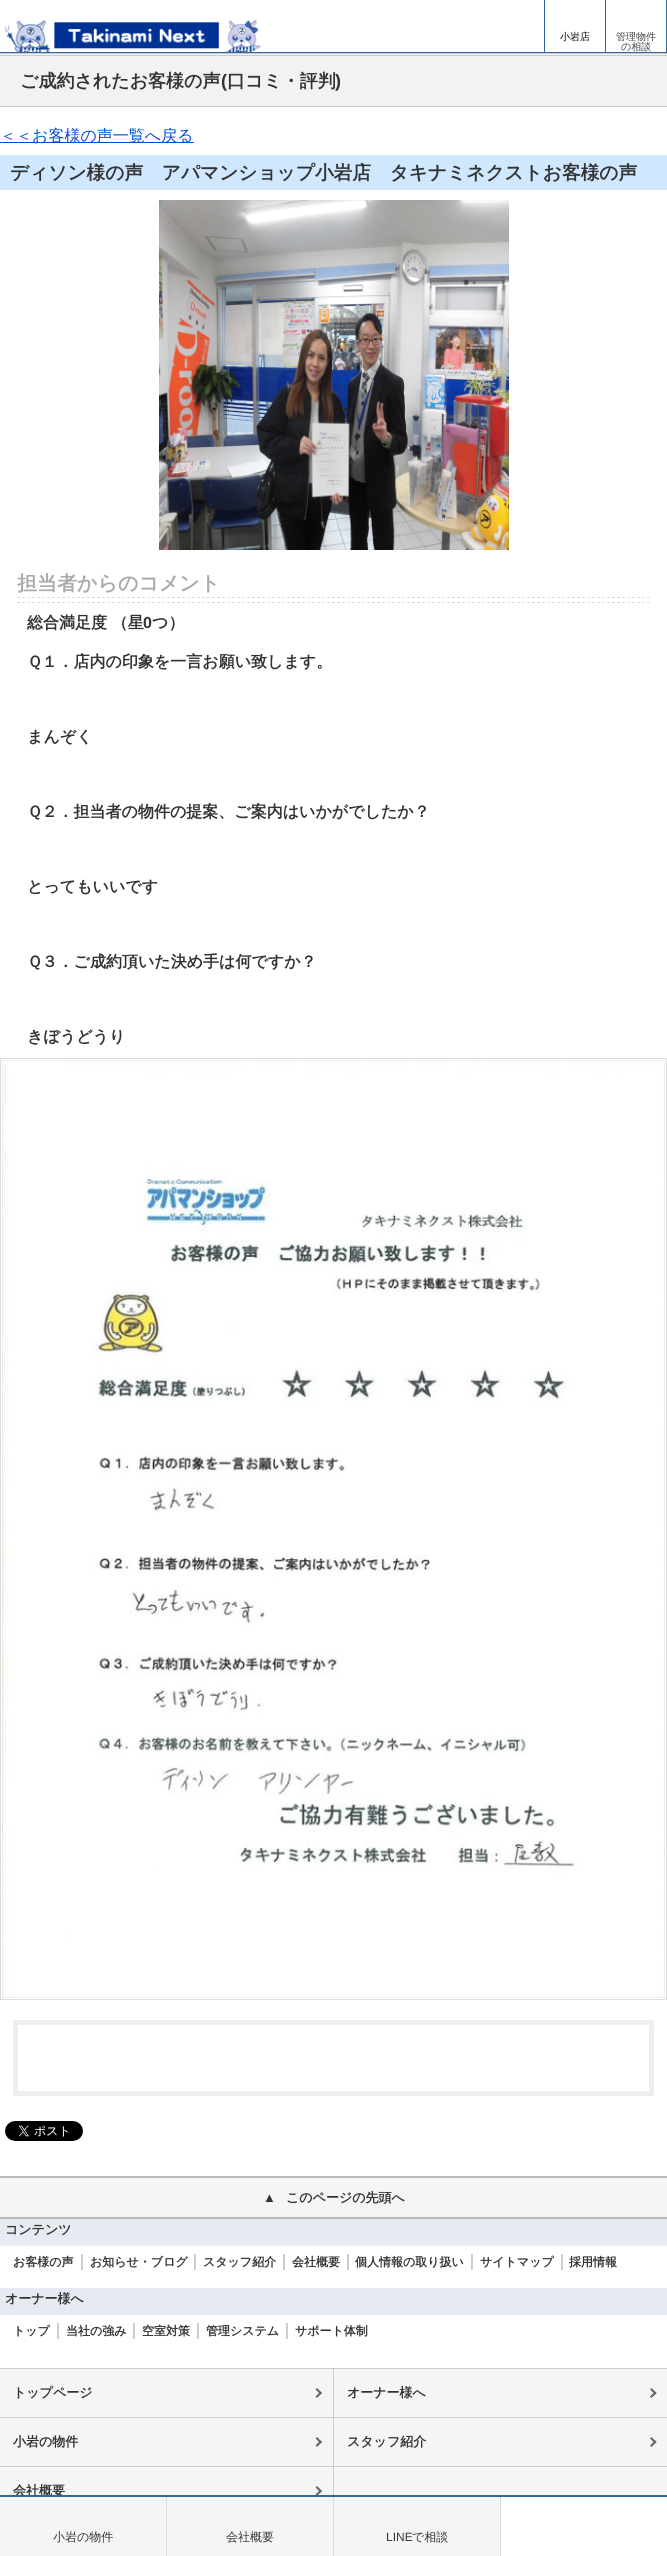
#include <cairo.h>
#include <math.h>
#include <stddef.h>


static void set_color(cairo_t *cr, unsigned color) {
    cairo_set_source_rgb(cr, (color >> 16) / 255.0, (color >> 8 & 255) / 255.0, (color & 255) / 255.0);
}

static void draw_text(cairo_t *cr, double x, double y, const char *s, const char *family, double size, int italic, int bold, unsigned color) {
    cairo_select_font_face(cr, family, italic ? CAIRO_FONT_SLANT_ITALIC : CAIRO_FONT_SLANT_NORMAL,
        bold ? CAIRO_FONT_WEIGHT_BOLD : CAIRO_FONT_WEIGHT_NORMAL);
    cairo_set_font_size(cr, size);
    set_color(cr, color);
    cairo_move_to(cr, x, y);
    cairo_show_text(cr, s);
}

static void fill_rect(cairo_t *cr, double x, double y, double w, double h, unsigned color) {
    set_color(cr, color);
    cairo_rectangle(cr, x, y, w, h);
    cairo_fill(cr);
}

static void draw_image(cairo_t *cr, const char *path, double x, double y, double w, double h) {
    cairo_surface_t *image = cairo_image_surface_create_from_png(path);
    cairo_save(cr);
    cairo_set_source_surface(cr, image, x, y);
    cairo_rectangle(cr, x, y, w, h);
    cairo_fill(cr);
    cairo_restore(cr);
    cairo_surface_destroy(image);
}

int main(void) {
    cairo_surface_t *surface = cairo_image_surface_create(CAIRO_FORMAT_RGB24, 667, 2556);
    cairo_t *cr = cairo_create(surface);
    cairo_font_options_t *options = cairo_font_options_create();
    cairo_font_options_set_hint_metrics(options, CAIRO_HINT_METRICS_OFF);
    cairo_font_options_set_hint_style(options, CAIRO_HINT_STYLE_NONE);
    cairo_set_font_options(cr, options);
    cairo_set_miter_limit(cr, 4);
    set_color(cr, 0xFFFFFF);
    cairo_paint(cr);
    fill_rect(cr, 0, 52, 667, 1, 0x326598);
    draw_image(cr, "assets/img1.png", 5, 20, 256, 32);
    fill_rect(cr, 605, 0, 1, 52, 0x326598);
    fill_rect(cr, 544, 0, 1, 52, 0x326598);
    draw_text(cr, 560, 40, "小岩店", "WenQuanYi Zen Hei Medium", 10, 0, 0, 0x000000);
    fill_rect(cr, 666, 0, 1, 52, 0x326598);
    draw_text(cr, 616, 40, "管理物件", "WenQuanYi Zen Hei Medium", 10, 0, 0, 0x444444);
    draw_text(cr, 621, 50, "の相談", "WenQuanYi Zen Hei Medium", 10, 0, 0, 0x444444);
    fill_rect(cr, 0, 54, 667, 52, 0xF2F2F2);
    fill_rect(cr, 0, 53, 667, 1, 0xCCCCCC);
    fill_rect(cr, 0, 55, 667, 1, 0xCCCCCC);
    fill_rect(cr, 0, 106, 667, 1, 0xCCCCCC);
    draw_text(cr, 20, 87, "ご成約されたお客様の声", "WenQuanYi Zen Hei", 18, 0, 1, 0x333333);
    draw_text(cr, 221, 87, "(", "Liberation Sans", 18, 0, 1, 0x333333);
    draw_text(cr, 227, 87, "口コミ・評判", "WenQuanYi Zen Hei", 18, 0, 1, 0x333333);
    draw_text(cr, 335, 87, ")", "Liberation Sans", 18, 0, 1, 0x333333);
    fill_rect(cr, 0, 142, 194, 1, 0x004CD3);
    draw_text(cr, 0, 141, "＜＜お客様の声一覧へ戻る", "WenQuanYi Zen Hei Medium", 16, 0, 0, 0x004CD3);
    fill_rect(cr, 0, 155, 667, 35, 0xD0E8FF);
    draw_text(cr, 10, 179, "ディソン様の声　アパマンショップ小岩店　タキナミネクストお客様の声", "WenQuanYi Zen Hei", 18.7, 0, 1, 0x333333);
    draw_image(cr, "assets/img2.png", 159, 200, 350, 350);
    cairo_new_path(cr);
    cairo_move_to(cr, 17, 602.5);
    cairo_line_to(cr, 650, 602.5);
    set_color(cr, 0xDDDDDD);
    cairo_set_line_width(cr, 1);
    cairo_set_dash(cr, (double[]){3, 2}, 2, 0);
    cairo_stroke(cr);
    cairo_new_path(cr);
    cairo_move_to(cr, 17, 597.5);
    cairo_line_to(cr, 650, 597.5);
    cairo_stroke(cr);
    draw_text(cr, 17, 590, "担当者からのコメント", "WenQuanYi Zen Hei", 20, 0, 1, 0xAAAAAA);
    draw_text(cr, 27, 628, "総合満足度 （星", "WenQuanYi Zen Hei", 16, 0, 1, 0x333333);
    draw_text(cr, 143, 628, "0", "Liberation Sans", 16, 0, 1, 0x333333);
    draw_text(cr, 152, 628, "つ）", "WenQuanYi Zen Hei", 16, 0, 1, 0x333333);
    draw_text(cr, 27, 667, "Ｑ１．店内の印象を一言お願い致します。", "WenQuanYi Zen Hei", 16, 0, 1, 0x333333);
    draw_text(cr, 27, 742, "まんぞく", "WenQuanYi Zen Hei", 16, 0, 1, 0x333333);
    draw_text(cr, 27, 817, "Ｑ２．担当者の物件の提案、ご案内はいかがでしたか？", "WenQuanYi Zen Hei", 16, 0, 1, 0x333333);
    draw_text(cr, 27, 892, "とってもいいです", "WenQuanYi Zen Hei", 16, 0, 1, 0x333333);
    draw_text(cr, 27, 967, "Ｑ３．ご成約頂いた決め手は何ですか？", "WenQuanYi Zen Hei", 16, 0, 1, 0x333333);
    draw_text(cr, 27, 1042, "きぼうどうり", "WenQuanYi Zen Hei", 16, 0, 1, 0x333333);
    cairo_rectangle(cr, 0.5, 1058.5, 666, 941);
    set_color(cr, 0xDDDDDD);
    cairo_set_dash(cr, NULL, 0, 0);
    cairo_stroke(cr);
    draw_image(cr, "assets/img3.png", 2, 1060, 663, 938);
    cairo_rectangle(cr, 15.5, 2022.5, 636, 71);
    set_color(cr, 0xEEEEEE);
    cairo_set_line_width(cr, 5);
    cairo_stroke(cr);
    draw_image(cr, "assets/img4.png", 5, 2121, 78, 20);
    fill_rect(cr, 0, 2178, 667, 39, 0xF5F5F5);
    fill_rect(cr, 0, 2176, 667, 2, 0xBABABA);
    fill_rect(cr, 0, 2217, 667, 2, 0xBABABA);
    draw_text(cr, 263, 2202, "▲", "Liberation Sans", 13, 0, 1, 0x333333);
    draw_text(cr, 286, 2202, "このページの先頭へ", "WenQuanYi Zen Hei", 13, 0, 1, 0x333333);
    fill_rect(cr, 0, 2219, 667, 27, 0xE5EBF1);
    draw_text(cr, 5, 2234, "コンテンツ", "WenQuanYi Zen Hei", 13, 0, 1, 0x333333);
    draw_text(cr, 13, 2266, "お客様の声", "WenQuanYi Zen Hei", 12, 0, 1, 0x333333);
    draw_text(cr, 74, 2266, "｜", "WenQuanYi Zen Hei Medium", 16, 0, 0, 0x999999);
    draw_text(cr, 90, 2266, "お知らせ・ブログ", "WenQuanYi Zen Hei", 12, 0, 1, 0x333333);
    draw_text(cr, 187, 2266, "｜", "WenQuanYi Zen Hei Medium", 16, 0, 0, 0x999999);
    draw_text(cr, 203, 2266, "スタッフ紹介", "WenQuanYi Zen Hei", 12, 0, 1, 0x333333);
    draw_text(cr, 276, 2266, "｜", "WenQuanYi Zen Hei Medium", 16, 0, 0, 0x999999);
    draw_text(cr, 292, 2266, "会社概要", "WenQuanYi Zen Hei", 12, 0, 1, 0x333333);
    draw_text(cr, 340, 2266, "｜", "WenQuanYi Zen Hei Medium", 16, 0, 0, 0x999999);
    draw_text(cr, 355, 2266, "個人情報の取り扱い", "WenQuanYi Zen Hei", 12, 0, 1, 0x333333);
    draw_text(cr, 464, 2266, "｜", "WenQuanYi Zen Hei Medium", 16, 0, 0, 0x999999);
    draw_text(cr, 480, 2266, "サイトマップ", "WenQuanYi Zen Hei", 12, 0, 1, 0x333333);
    draw_text(cr, 554, 2266, "｜", "WenQuanYi Zen Hei Medium", 16, 0, 0, 0x999999);
    draw_text(cr, 569, 2266, "採用情報", "WenQuanYi Zen Hei", 12, 0, 1, 0x333333);
    fill_rect(cr, 0, 2288, 667, 27, 0xE5EBF1);
    draw_text(cr, 5, 2303, "オーナー様へ", "WenQuanYi Zen Hei", 13, 0, 1, 0x333333);
    draw_text(cr, 13, 2335, "トップ", "WenQuanYi Zen Hei", 12, 0, 1, 0x333333);
    draw_text(cr, 50, 2335, "｜", "WenQuanYi Zen Hei Medium", 16, 0, 0, 0x999999);
    draw_text(cr, 66, 2335, "当社の強み", "WenQuanYi Zen Hei", 12, 0, 1, 0x333333);
    draw_text(cr, 126, 2335, "｜", "WenQuanYi Zen Hei Medium", 16, 0, 0, 0x999999);
    draw_text(cr, 142, 2335, "空室対策", "WenQuanYi Zen Hei", 12, 0, 1, 0x333333);
    draw_text(cr, 190, 2335, "｜", "WenQuanYi Zen Hei Medium", 16, 0, 0, 0x999999);
    draw_text(cr, 206, 2335, "管理システム", "WenQuanYi Zen Hei", 12, 0, 1, 0x333333);
    draw_text(cr, 279, 2335, "｜", "WenQuanYi Zen Hei Medium", 16, 0, 0, 0x999999);
    draw_text(cr, 295, 2335, "サポート体制", "WenQuanYi Zen Hei", 12, 0, 1, 0x333333);
    fill_rect(cr, 0, 2369, 667, 126, 0xF5F5F5);
    fill_rect(cr, 0, 2368, 667, 1, 0xCCCCCC);
    fill_rect(cr, 333, 2369, 1, 126, 0xCCCCCC);
    fill_rect(cr, 0, 2417, 667, 1, 0xCCCCCC);
    draw_text(cr, 13, 2397, "トップページ", "WenQuanYi Zen Hei", 13, 0, 1, 0x333333);
    set_color(cr, 0x666666);
    cairo_new_path(cr);
    cairo_move_to(cr, 317, 2388);
    cairo_line_to(cr, 322, 2393);
    cairo_line_to(cr, 320.5, 2394.5);
    cairo_line_to(cr, 315.5, 2389.5);
    cairo_close_path(cr);
    cairo_fill(cr);
    cairo_new_path(cr);
    cairo_move_to(cr, 320.5, 2391.5);
    cairo_line_to(cr, 322, 2393);
    cairo_line_to(cr, 317, 2398);
    cairo_line_to(cr, 315.5, 2396.5);
    cairo_close_path(cr);
    cairo_fill(cr);
    draw_text(cr, 347, 2397, "オーナー様へ", "WenQuanYi Zen Hei", 13, 0, 1, 0x333333);
    set_color(cr, 0x666666);
    cairo_new_path(cr);
    cairo_move_to(cr, 651.5, 2388);
    cairo_line_to(cr, 656.5, 2393);
    cairo_line_to(cr, 655, 2394.5);
    cairo_line_to(cr, 650, 2389.5);
    cairo_close_path(cr);
    cairo_fill(cr);
    cairo_new_path(cr);
    cairo_move_to(cr, 655, 2391.5);
    cairo_line_to(cr, 656.5, 2393);
    cairo_line_to(cr, 651.5, 2398);
    cairo_line_to(cr, 650, 2396.5);
    cairo_close_path(cr);
    cairo_fill(cr);
    fill_rect(cr, 0, 2466, 667, 1, 0xCCCCCC);
    draw_text(cr, 13, 2446, "小岩の物件", "WenQuanYi Zen Hei", 13, 0, 1, 0x333333);
    set_color(cr, 0x666666);
    cairo_new_path(cr);
    cairo_move_to(cr, 317, 2437);
    cairo_line_to(cr, 322, 2442);
    cairo_line_to(cr, 320.5, 2443.5);
    cairo_line_to(cr, 315.5, 2438.5);
    cairo_close_path(cr);
    cairo_fill(cr);
    cairo_new_path(cr);
    cairo_move_to(cr, 320.5, 2440.5);
    cairo_line_to(cr, 322, 2442);
    cairo_line_to(cr, 317, 2447);
    cairo_line_to(cr, 315.5, 2445.5);
    cairo_close_path(cr);
    cairo_fill(cr);
    draw_text(cr, 347, 2446, "スタッフ紹介", "WenQuanYi Zen Hei", 13, 0, 1, 0x333333);
    set_color(cr, 0x666666);
    cairo_new_path(cr);
    cairo_move_to(cr, 651.5, 2437);
    cairo_line_to(cr, 656.5, 2442);
    cairo_line_to(cr, 655, 2443.5);
    cairo_line_to(cr, 650, 2438.5);
    cairo_close_path(cr);
    cairo_fill(cr);
    cairo_new_path(cr);
    cairo_move_to(cr, 655, 2440.5);
    cairo_line_to(cr, 656.5, 2442);
    cairo_line_to(cr, 651.5, 2447);
    cairo_line_to(cr, 650, 2445.5);
    cairo_close_path(cr);
    cairo_fill(cr);
    draw_text(cr, 13, 2495, "会社概要", "WenQuanYi Zen Hei", 13, 0, 1, 0x333333);
    set_color(cr, 0x666666);
    cairo_new_path(cr);
    cairo_move_to(cr, 317, 2486);
    cairo_line_to(cr, 322, 2491);
    cairo_line_to(cr, 320.5, 2492.5);
    cairo_line_to(cr, 315.5, 2487.5);
    cairo_close_path(cr);
    cairo_fill(cr);
    cairo_new_path(cr);
    cairo_move_to(cr, 320.5, 2489.5);
    cairo_line_to(cr, 322, 2491);
    cairo_line_to(cr, 317, 2496);
    cairo_line_to(cr, 315.5, 2494.5);
    cairo_close_path(cr);
    cairo_fill(cr);
    fill_rect(cr, 0, 2497, 500, 59, 0xF5F5F5);
    fill_rect(cr, 0, 2495, 667, 2, 0x326598);
    fill_rect(cr, 166, 2497, 1, 59, 0xDDDDDD);
    draw_text(cr, 53, 2541, "小岩の物件", "WenQuanYi Zen Hei Medium", 12, 0, 0, 0x333333);
    fill_rect(cr, 333, 2497, 1, 59, 0xDDDDDD);
    draw_text(cr, 226, 2541, "会社概要", "WenQuanYi Zen Hei Medium", 12, 0, 0, 0x333333);
    fill_rect(cr, 500, 2497, 1, 59, 0xDDDDDD);
    draw_text(cr, 386, 2541, "LINE", "Liberation Sans", 12, 0, 0, 0x333333);
    draw_text(cr, 412, 2541, "で相談", "WenQuanYi Zen Hei Medium", 12, 0, 0, 0x333333);
    cairo_surface_write_to_png(surface, "output.png");
    cairo_font_options_destroy(options);
    cairo_destroy(cr);
    cairo_surface_destroy(surface);
    return 0;
}
